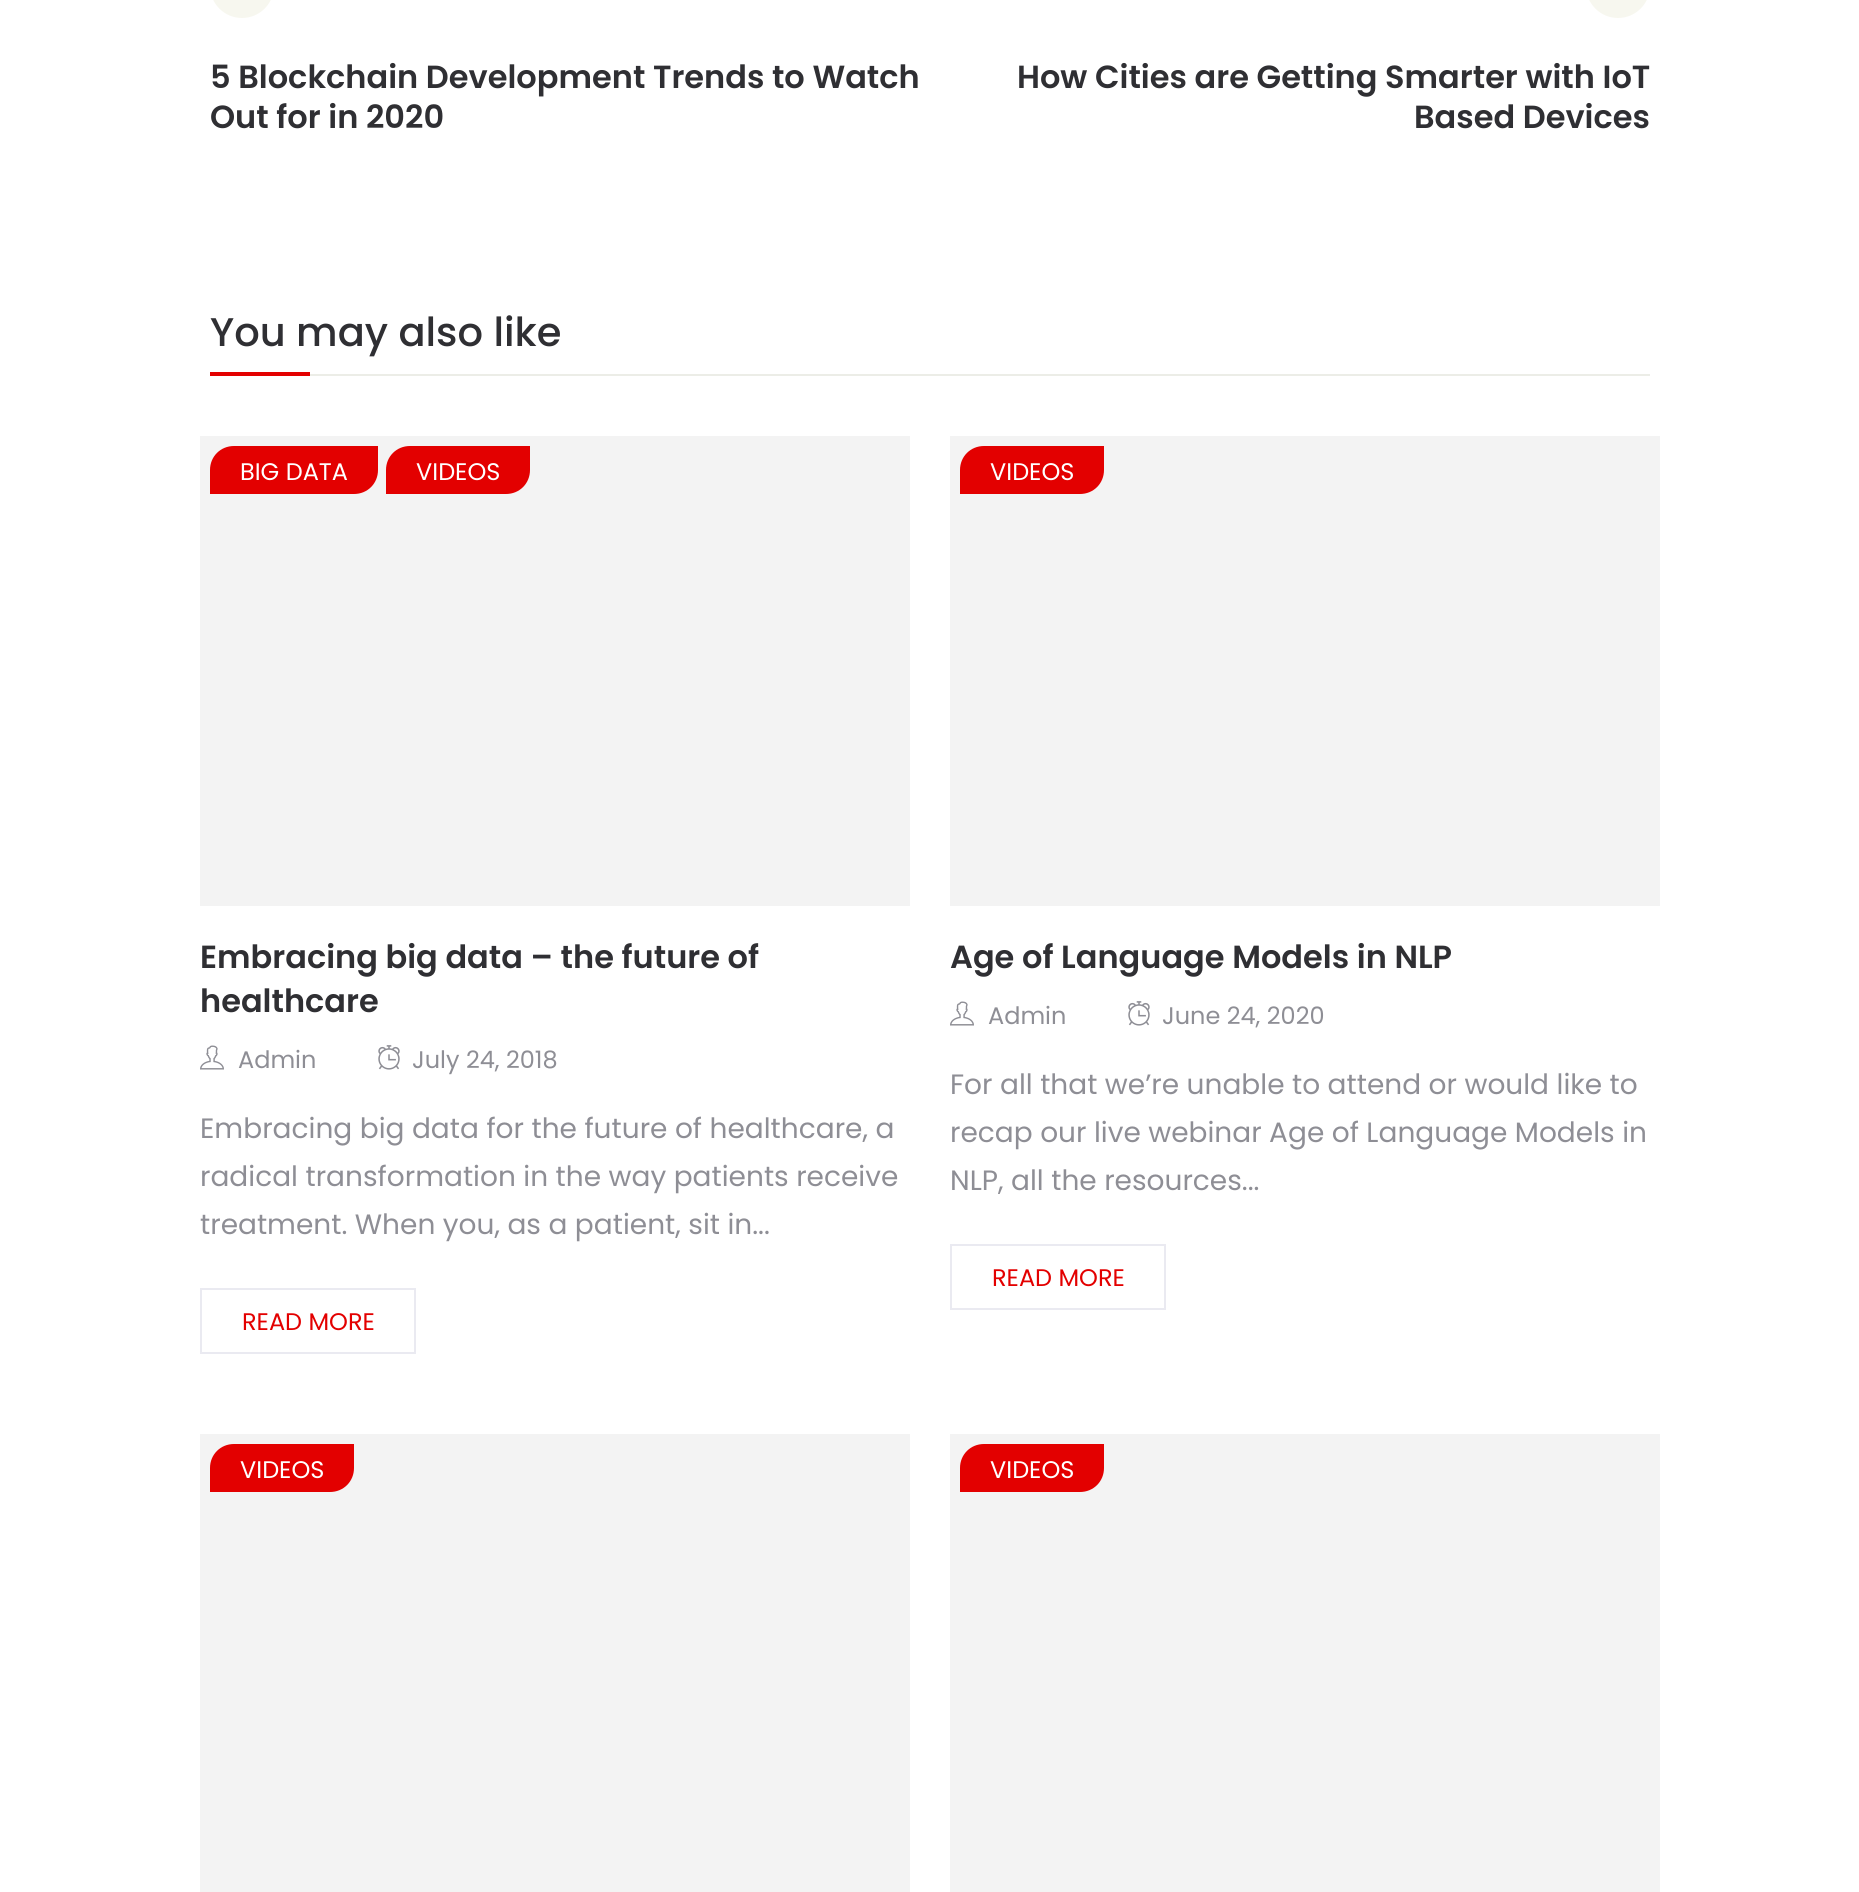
#include <cairo.h>
#include <math.h>
#include <stddef.h>


static void set_color(cairo_t *cr, unsigned color) {
    cairo_set_source_rgb(cr, (color >> 16) / 255.0, (color >> 8 & 255) / 255.0, (color & 255) / 255.0);
}

static void draw_text(cairo_t *cr, double x, double y, const char *s, const char *family, double size, int italic, int bold, unsigned color) {
    cairo_select_font_face(cr, family, italic ? CAIRO_FONT_SLANT_ITALIC : CAIRO_FONT_SLANT_NORMAL,
        bold ? CAIRO_FONT_WEIGHT_BOLD : CAIRO_FONT_WEIGHT_NORMAL);
    cairo_set_font_size(cr, size);
    set_color(cr, color);
    cairo_move_to(cr, x, y);
    cairo_show_text(cr, s);
}

static void fill_rect(cairo_t *cr, double x, double y, double w, double h, unsigned color) {
    set_color(cr, color);
    cairo_rectangle(cr, x, y, w, h);
    cairo_fill(cr);
}

static void rounded_rect(cairo_t *cr, double x, double y, double w, double h, double r) {
    cairo_new_sub_path(cr);
    cairo_arc(cr, x + w - r, y + h - r, r, 0, M_PI / 2);
    cairo_arc(cr, x + r, y + h - r, r, M_PI / 2, M_PI);
    cairo_arc(cr, x + r, y + r, r, M_PI, 1.5 * M_PI);
    cairo_arc(cr, x + w - r, y + r, r, 1.5 * M_PI, 2 * M_PI);
    cairo_close_path(cr);
}

static void draw_image(cairo_t *cr, const char *path, double x, double y, double w, double h) {
    cairo_surface_t *image = cairo_image_surface_create_from_png(path);
    cairo_save(cr);
    cairo_set_source_surface(cr, image, x, y);
    cairo_rectangle(cr, x, y, w, h);
    cairo_fill(cr);
    cairo_restore(cr);
    cairo_surface_destroy(image);
}

int main(void) {
    cairo_surface_t *surface = cairo_image_surface_create(CAIRO_FORMAT_RGB24, 1859, 1892);
    cairo_t *cr = cairo_create(surface);
    cairo_font_options_t *options = cairo_font_options_create();
    cairo_font_options_set_hint_metrics(options, CAIRO_HINT_METRICS_OFF);
    cairo_font_options_set_hint_style(options, CAIRO_HINT_STYLE_NONE);
    cairo_set_font_options(cr, options);
    cairo_set_miter_limit(cr, 4);
    set_color(cr, 0xFFFFFF);
    cairo_paint(cr);
    set_color(cr, 0xF7F7EF);
    rounded_rect(cr, 210, -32, 64, 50, 32);
    cairo_fill(cr);
    draw_text(cr, 210, 88, "5 Blockchain Development Trends to Watch", "Poppins SemiBold", 32, 0, 0, 0x2F2F33);
    draw_text(cr, 210, 128, "Out for in 2020", "Poppins SemiBold", 32, 0, 0, 0x2F2F33);
    set_color(cr, 0xF7F7EF);
    rounded_rect(cr, 1586, -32, 64, 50, 32);
    cairo_fill(cr);
    draw_text(cr, 1017, 88, "How Cities are Getting Smarter with IoT", "Poppins SemiBold", 32, 0, 0, 0x2F2F33);
    draw_text(cr, 1414, 128, "Based Devices", "Poppins SemiBold", 32, 0, 0, 0x2F2F33);
    fill_rect(cr, 310, 374, 1340, 2, 0xECEDE7);
    draw_text(cr, 210, 346, "You may also like", "Poppins Medium", 40, 0, 0, 0x2F2F33);
    fill_rect(cr, 210, 372, 100, 4, 0xE30000);
    fill_rect(cr, 200, 436, 710, 470, 0xF3F3F3);
    set_color(cr, 0xE30000);
    cairo_new_path(cr);
    cairo_move_to(cr, 234, 446);
    cairo_line_to(cr, 378, 446);
    cairo_line_to(cr, 378, 470);
    cairo_curve_to(cr, 378, 483.5, 367.5, 494, 354, 494);
    cairo_line_to(cr, 210, 494);
    cairo_line_to(cr, 210, 470);
    cairo_curve_to(cr, 210, 456.5, 220.5, 446, 234, 446);
    cairo_close_path(cr);
    cairo_fill(cr);
    draw_text(cr, 240, 480, "BIG DATA", "Poppins", 24, 0, 0, 0xFFFFFF);
    set_color(cr, 0xE30000);
    cairo_new_path(cr);
    cairo_move_to(cr, 410, 446);
    cairo_line_to(cr, 530, 446);
    cairo_line_to(cr, 530, 470);
    cairo_curve_to(cr, 530, 483.5, 519.5, 494, 506, 494);
    cairo_line_to(cr, 386, 494);
    cairo_line_to(cr, 386, 470);
    cairo_curve_to(cr, 386, 456.5, 396.5, 446, 410, 446);
    cairo_close_path(cr);
    cairo_fill(cr);
    draw_text(cr, 416, 480, "VIDEOS", "Poppins", 24, 0, 0, 0xFFFFFF);
    draw_text(cr, 200, 968, "Embracing big data – the future of", "Poppins SemiBold", 32, 0, 0, 0x2F2F33);
    draw_text(cr, 200, 1012, "healthcare", "Poppins SemiBold", 32, 0, 0, 0x2F2F33);
    draw_image(cr, "assets/img1.png", 200, 1045, 24, 25);
    draw_text(cr, 238, 1068, "Admin", "Poppins", 24, 0, 0, 0x8E8E95);
    draw_image(cr, "assets/img2.png", 378, 1045, 22, 25);
    draw_text(cr, 412, 1068, "July 24, 2018", "Poppins", 24, 0, 0, 0x8E8E95);
    draw_text(cr, 200, 1138, "Embracing big data for the future of healthcare, a", "Poppins", 28, 0, 0, 0x8E8E95);
    draw_text(cr, 200, 1186, "radical transformation in the way patients receive", "Poppins", 28, 0, 0, 0x8E8E95);
    draw_text(cr, 200, 1234, "treatment. When you, as a patient, sit in...", "Poppins", 28, 0, 0, 0x8E8E95);
    cairo_rectangle(cr, 201, 1289, 214, 64);
    set_color(cr, 0xEAEAF1);
    cairo_stroke(cr);
    draw_text(cr, 242, 1330, "READ MORE", "Poppins", 24, 0, 0, 0xE30000);
    fill_rect(cr, 950, 436, 710, 470, 0xF3F3F3);
    set_color(cr, 0xE30000);
    cairo_new_path(cr);
    cairo_move_to(cr, 984, 446);
    cairo_line_to(cr, 1104, 446);
    cairo_line_to(cr, 1104, 470);
    cairo_curve_to(cr, 1104, 483.5, 1093.5, 494, 1080, 494);
    cairo_line_to(cr, 960, 494);
    cairo_line_to(cr, 960, 470);
    cairo_curve_to(cr, 960, 456.5, 970.5, 446, 984, 446);
    cairo_close_path(cr);
    cairo_fill(cr);
    draw_text(cr, 990, 480, "VIDEOS", "Poppins", 24, 0, 0, 0xFFFFFF);
    draw_text(cr, 950, 968, "Age of Language Models in NLP", "Poppins SemiBold", 32, 0, 0, 0x2F2F33);
    draw_image(cr, "assets/img1.png", 950, 1001, 24, 25);
    draw_text(cr, 988, 1024, "Admin", "Poppins", 24, 0, 0, 0x8E8E95);
    draw_image(cr, "assets/img2.png", 1128, 1001, 22, 25);
    draw_text(cr, 1162, 1024, "June 24, 2020", "Poppins", 24, 0, 0, 0x8E8E95);
    draw_text(cr, 950, 1094, "For all that we’re unable to attend or would like to", "Poppins", 28, 0, 0, 0x8E8E95);
    draw_text(cr, 950, 1142, "recap our live webinar Age of Language Models in", "Poppins", 28, 0, 0, 0x8E8E95);
    draw_text(cr, 950, 1190, "NLP, all the resources...", "Poppins", 28, 0, 0, 0x8E8E95);
    cairo_rectangle(cr, 951, 1245, 214, 64);
    set_color(cr, 0xEAEAF1);
    cairo_stroke(cr);
    draw_text(cr, 992, 1286, "READ MORE", "Poppins", 24, 0, 0, 0xE30000);
    fill_rect(cr, 200, 1434, 710, 458, 0xF3F3F3);
    set_color(cr, 0xE30000);
    cairo_new_path(cr);
    cairo_move_to(cr, 234, 1444);
    cairo_line_to(cr, 354, 1444);
    cairo_line_to(cr, 354, 1468);
    cairo_curve_to(cr, 354, 1481.5, 343.5, 1492, 330, 1492);
    cairo_line_to(cr, 210, 1492);
    cairo_line_to(cr, 210, 1468);
    cairo_curve_to(cr, 210, 1454.5, 220.5, 1444, 234, 1444);
    cairo_close_path(cr);
    cairo_fill(cr);
    draw_text(cr, 240, 1478, "VIDEOS", "Poppins", 24, 0, 0, 0xFFFFFF);
    fill_rect(cr, 950, 1434, 710, 458, 0xF3F3F3);
    set_color(cr, 0xE30000);
    cairo_new_path(cr);
    cairo_move_to(cr, 984, 1444);
    cairo_line_to(cr, 1104, 1444);
    cairo_line_to(cr, 1104, 1468);
    cairo_curve_to(cr, 1104, 1481.5, 1093.5, 1492, 1080, 1492);
    cairo_line_to(cr, 960, 1492);
    cairo_line_to(cr, 960, 1468);
    cairo_curve_to(cr, 960, 1454.5, 970.5, 1444, 984, 1444);
    cairo_close_path(cr);
    cairo_fill(cr);
    draw_text(cr, 990, 1478, "VIDEOS", "Poppins", 24, 0, 0, 0xFFFFFF);
    cairo_surface_write_to_png(surface, "output.png");
    cairo_font_options_destroy(options);
    cairo_destroy(cr);
    cairo_surface_destroy(surface);
    return 0;
}
